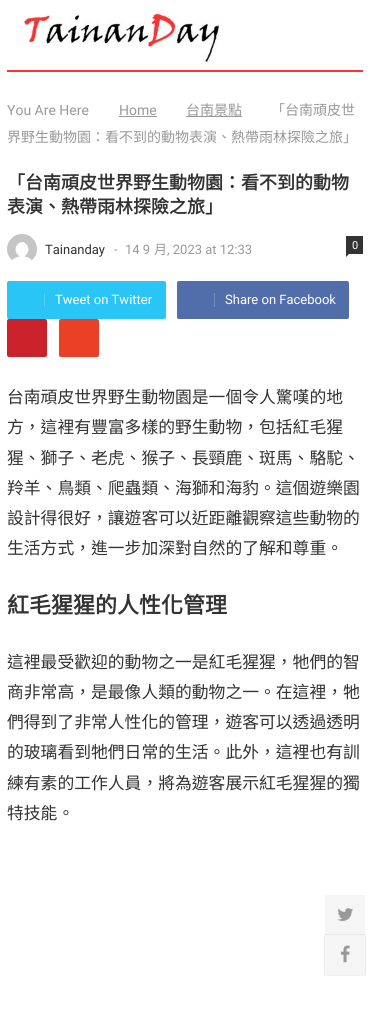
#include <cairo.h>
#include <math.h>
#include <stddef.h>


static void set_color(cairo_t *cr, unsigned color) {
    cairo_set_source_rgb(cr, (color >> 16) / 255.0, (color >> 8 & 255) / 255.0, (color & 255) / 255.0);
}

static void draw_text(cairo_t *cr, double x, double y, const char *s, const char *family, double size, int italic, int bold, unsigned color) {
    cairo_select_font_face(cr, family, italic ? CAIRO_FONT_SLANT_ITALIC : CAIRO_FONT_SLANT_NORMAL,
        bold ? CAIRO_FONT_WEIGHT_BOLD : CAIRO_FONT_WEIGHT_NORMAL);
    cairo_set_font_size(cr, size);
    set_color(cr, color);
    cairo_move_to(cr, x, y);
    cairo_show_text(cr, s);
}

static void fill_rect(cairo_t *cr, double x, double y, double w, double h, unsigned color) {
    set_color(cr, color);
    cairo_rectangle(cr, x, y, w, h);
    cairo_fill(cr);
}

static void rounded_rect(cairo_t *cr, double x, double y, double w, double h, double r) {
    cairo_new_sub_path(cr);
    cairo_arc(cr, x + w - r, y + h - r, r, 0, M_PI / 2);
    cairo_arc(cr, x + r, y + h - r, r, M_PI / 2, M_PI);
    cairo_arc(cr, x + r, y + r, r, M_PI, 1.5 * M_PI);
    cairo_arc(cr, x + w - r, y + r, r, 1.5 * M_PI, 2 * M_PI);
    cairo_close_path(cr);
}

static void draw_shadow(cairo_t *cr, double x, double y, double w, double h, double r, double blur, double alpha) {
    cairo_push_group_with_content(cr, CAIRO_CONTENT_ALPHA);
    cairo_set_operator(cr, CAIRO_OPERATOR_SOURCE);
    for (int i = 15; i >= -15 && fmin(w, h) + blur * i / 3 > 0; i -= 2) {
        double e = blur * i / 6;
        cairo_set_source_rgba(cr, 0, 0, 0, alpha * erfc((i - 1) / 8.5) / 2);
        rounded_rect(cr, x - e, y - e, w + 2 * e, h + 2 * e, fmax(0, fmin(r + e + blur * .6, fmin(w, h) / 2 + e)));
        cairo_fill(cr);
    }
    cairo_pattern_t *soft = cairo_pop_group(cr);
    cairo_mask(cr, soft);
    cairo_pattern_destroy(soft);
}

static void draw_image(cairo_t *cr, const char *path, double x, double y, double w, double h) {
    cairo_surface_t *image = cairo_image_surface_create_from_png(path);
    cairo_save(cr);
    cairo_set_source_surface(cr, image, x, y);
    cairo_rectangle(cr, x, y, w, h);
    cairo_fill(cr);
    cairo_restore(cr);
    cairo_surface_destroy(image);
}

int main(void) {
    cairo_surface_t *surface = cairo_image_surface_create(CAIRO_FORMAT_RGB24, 370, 1020);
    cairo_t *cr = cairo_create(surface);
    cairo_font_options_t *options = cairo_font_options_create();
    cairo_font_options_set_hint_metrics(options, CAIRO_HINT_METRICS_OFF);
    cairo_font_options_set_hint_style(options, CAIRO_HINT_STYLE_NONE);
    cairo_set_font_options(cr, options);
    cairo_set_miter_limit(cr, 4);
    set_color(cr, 0xFFFFFF);
    cairo_paint(cr);
    draw_image(cr, "assets/img1.png", 21, 5, 198, 59);
    fill_rect(cr, 7, 70, 356, 2, 0xFF3333);
    draw_text(cr, 7, 115, "You Are Here", "Roboto", 14, 0, 0, 0x999999);
    draw_text(cr, 119, 115, "Home", "Roboto", 14, 0, 0, 0x999999);
    fill_rect(cr, 119, 116, 38, 1, 0x999999);
    fill_rect(cr, 186, 116, 56, 1, 0x999999);
    draw_text(cr, 186, 115, "台南景點", "Noto Sans CJK TC", 14, 0, 0, 0x999999);
    draw_text(cr, 271, 115, "「台南頑皮世", "Noto Sans CJK TC", 14, 0, 0, 0x999999);
    draw_text(cr, 7, 142, "界野生動物園：看不到的動物表演、熱帶雨林探險之旅」", "Noto Sans CJK TC", 14, 0, 0, 0x999999);
    draw_text(cr, 7, 189, "「台南頑皮世界野生動物園：看不到的動物", "Noto Sans CJK TC", 18, 0, 1, 0x333333);
    draw_text(cr, 7, 213, "表演、熱帶雨林探險之旅」", "Noto Sans CJK TC", 18, 0, 1, 0x333333);
    draw_image(cr, "assets/img2.png", 7, 234, 30, 27);
    draw_text(cr, 45, 254, "Tainanday", "Roboto", 13, 0, 0, 0x333333);
    draw_text(cr, 114, 254, "-", "Roboto", 13, 0, 0, 0x999999);
    draw_text(cr, 125, 254, "14 9", "Roboto", 13, 0, 0, 0x999999);
    draw_text(cr, 154, 254, "月", "Noto Sans CJK TC", 13, 0, 0, 0x999999);
    draw_text(cr, 167, 254, ", 2023 at 12:33", "Roboto", 13, 0, 0, 0x999999);
    fill_rect(cr, 346, 236, 17, 18, 0x333333);
    draw_text(cr, 352, 249, "0", "Roboto", 11, 0, 0, 0xFFFFFF);
    set_color(cr, 0x333333);
    cairo_new_path(cr);
    cairo_move_to(cr, 346, 254);
    cairo_line_to(cr, 349, 254);
    cairo_line_to(cr, 346, 257);
    cairo_close_path(cr);
    cairo_fill(cr);
    set_color(cr, 0x29C5F6);
    rounded_rect(cr, 7, 281, 159, 38, 2);
    cairo_fill(cr);
    fill_rect(cr, 44, 293, 1, 14, 0x54D1F8);
    draw_text(cr, 55, 304, "Tweet on Twitter", "Roboto", 13, 0, 0, 0xFFFFFF);
    set_color(cr, 0x516EAB);
    rounded_rect(cr, 177, 281, 172, 38, 2);
    cairo_fill(cr);
    fill_rect(cr, 214, 293, 1, 14, 0x748BBC);
    draw_text(cr, 225, 304, "Share on Facebook", "Roboto", 13, 0, 0, 0xFFFFFF);
    set_color(cr, 0xCA212A);
    rounded_rect(cr, 7, 319, 40, 38, 2);
    cairo_fill(cr);
    set_color(cr, 0xEB4026);
    rounded_rect(cr, 59, 319, 40, 38, 2);
    cairo_fill(cr);
    draw_text(cr, 7, 403, "台南頑皮世界野生動物園是一個令人驚嘆的地", "Noto Sans CJK TC", 16.8, 0, 0, 0x333333);
    draw_text(cr, 7, 433, "方，這裡有豐富多樣的野生動物，包括紅毛猩", "Noto Sans CJK TC", 16.8, 0, 0, 0x333333);
    draw_text(cr, 7, 464, "猩、獅子、老虎、猴子、長頸鹿、斑馬、駱駝、", "Noto Sans CJK TC", 16.8, 0, 0, 0x333333);
    draw_text(cr, 7, 494, "羚羊、鳥類、爬蟲類、海獅和海豹。這個遊樂園", "Noto Sans CJK TC", 16.8, 0, 0, 0x333333);
    draw_text(cr, 7, 524, "設計得很好，讓遊客可以近距離觀察這些動物的", "Noto Sans CJK TC", 16.8, 0, 0, 0x333333);
    draw_text(cr, 7, 554, "生活方式，進一步加深對自然的了解和尊重。", "Noto Sans CJK TC", 16.8, 0, 0, 0x333333);
    draw_text(cr, 7, 613, "紅毛猩猩的人性化管理", "Noto Sans CJK TC", 22, 0, 1, 0x333333);
    draw_text(cr, 7, 668, "這裡最受歡迎的動物之一是紅毛猩猩，牠們的智", "Noto Sans CJK TC", 16.8, 0, 0, 0x333333);
    draw_text(cr, 7, 698, "商非常高，是最像人類的動物之一。在這裡，牠", "Noto Sans CJK TC", 16.8, 0, 0, 0x333333);
    draw_text(cr, 7, 728, "們得到了非常人性化的管理，遊客可以透過透明", "Noto Sans CJK TC", 16.8, 0, 0, 0x333333);
    draw_text(cr, 7, 758, "的玻璃看到牠們日常的生活。此外，這裡也有訓", "Noto Sans CJK TC", 16.8, 0, 0, 0x333333);
    draw_text(cr, 7, 789, "練有素的工作人員，將為遊客展示紅毛猩猩的獨", "Noto Sans CJK TC", 16.8, 0, 0, 0x333333);
    draw_text(cr, 7, 819, "特技能。", "Noto Sans CJK TC", 16.8, 0, 0, 0x333333);
    fill_rect(cr, 325, 895, 40, 40, 0xF5F5F5);
    draw_image(cr, "assets/img3.png", 337, 908, 16, 13);
    set_color(cr, 0x000000);
    draw_shadow(cr, 325, 935, 40, 40, 0, 0.5, 0.25);
    fill_rect(cr, 325, 935, 40, 40, 0xF5F5F5);
    draw_image(cr, "assets/img4.png", 340, 945, 10, 18);
    cairo_surface_write_to_png(surface, "output.png");
    cairo_font_options_destroy(options);
    cairo_destroy(cr);
    cairo_surface_destroy(surface);
    return 0;
}
